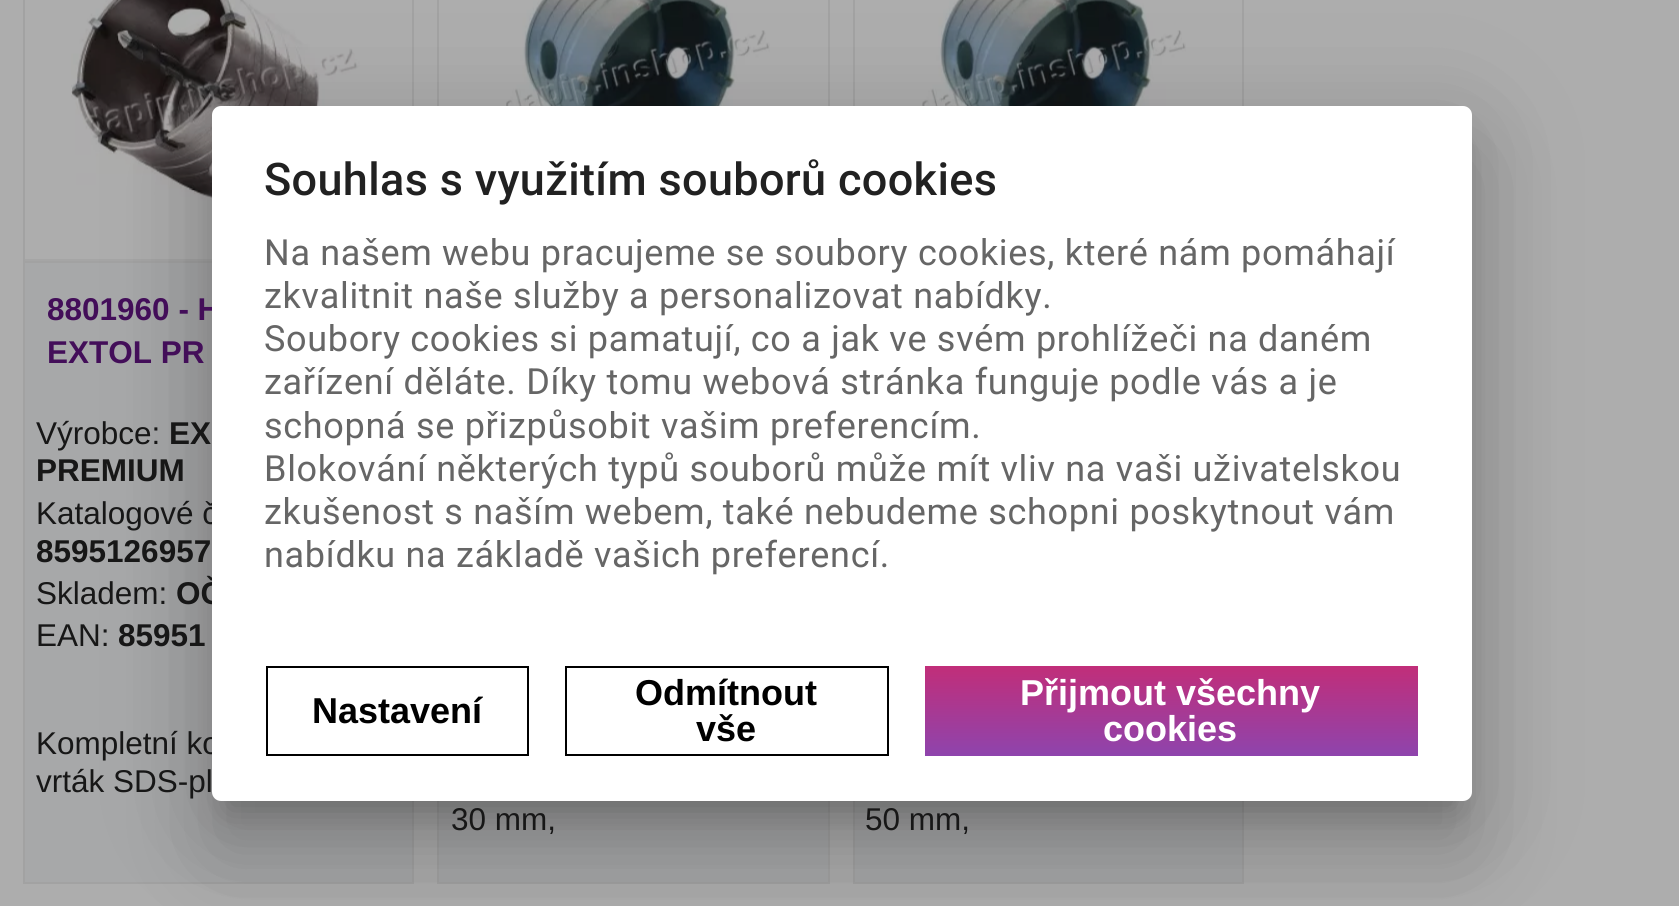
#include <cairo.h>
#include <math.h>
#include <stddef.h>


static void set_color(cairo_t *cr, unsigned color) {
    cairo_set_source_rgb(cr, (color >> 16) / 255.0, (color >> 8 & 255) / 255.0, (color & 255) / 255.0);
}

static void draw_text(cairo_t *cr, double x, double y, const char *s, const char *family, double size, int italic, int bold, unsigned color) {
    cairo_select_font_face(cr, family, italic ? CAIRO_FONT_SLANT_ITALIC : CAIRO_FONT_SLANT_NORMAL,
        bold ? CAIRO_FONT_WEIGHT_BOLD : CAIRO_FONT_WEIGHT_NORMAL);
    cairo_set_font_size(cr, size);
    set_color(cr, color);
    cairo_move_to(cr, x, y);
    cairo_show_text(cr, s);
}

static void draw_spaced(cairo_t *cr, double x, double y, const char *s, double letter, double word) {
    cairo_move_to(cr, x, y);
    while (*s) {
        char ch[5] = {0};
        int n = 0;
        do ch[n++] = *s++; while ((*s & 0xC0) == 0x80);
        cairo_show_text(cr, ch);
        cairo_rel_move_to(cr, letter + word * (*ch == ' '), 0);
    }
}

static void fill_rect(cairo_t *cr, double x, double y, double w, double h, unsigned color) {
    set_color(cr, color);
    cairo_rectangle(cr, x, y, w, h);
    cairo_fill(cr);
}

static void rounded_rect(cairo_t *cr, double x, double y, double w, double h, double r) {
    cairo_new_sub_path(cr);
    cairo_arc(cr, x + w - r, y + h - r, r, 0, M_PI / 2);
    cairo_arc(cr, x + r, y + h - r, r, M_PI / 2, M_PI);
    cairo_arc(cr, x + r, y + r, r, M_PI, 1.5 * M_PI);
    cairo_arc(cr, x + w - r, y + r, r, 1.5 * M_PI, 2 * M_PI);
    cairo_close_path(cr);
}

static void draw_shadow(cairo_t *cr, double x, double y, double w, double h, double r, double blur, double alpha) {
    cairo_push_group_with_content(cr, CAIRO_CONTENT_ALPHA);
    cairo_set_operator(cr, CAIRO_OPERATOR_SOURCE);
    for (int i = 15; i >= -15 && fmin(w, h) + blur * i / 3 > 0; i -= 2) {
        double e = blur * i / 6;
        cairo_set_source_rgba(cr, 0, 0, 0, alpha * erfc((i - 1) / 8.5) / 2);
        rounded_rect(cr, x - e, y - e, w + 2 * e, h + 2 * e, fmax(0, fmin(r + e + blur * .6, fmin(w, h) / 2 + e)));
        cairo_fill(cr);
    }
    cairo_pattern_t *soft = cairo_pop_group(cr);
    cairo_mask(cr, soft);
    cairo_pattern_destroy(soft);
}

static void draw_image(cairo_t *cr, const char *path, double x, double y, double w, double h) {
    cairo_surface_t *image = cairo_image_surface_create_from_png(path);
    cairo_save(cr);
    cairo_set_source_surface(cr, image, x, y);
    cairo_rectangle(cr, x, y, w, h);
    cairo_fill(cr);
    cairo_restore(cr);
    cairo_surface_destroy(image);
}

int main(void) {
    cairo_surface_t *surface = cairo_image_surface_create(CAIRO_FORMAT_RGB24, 1679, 906);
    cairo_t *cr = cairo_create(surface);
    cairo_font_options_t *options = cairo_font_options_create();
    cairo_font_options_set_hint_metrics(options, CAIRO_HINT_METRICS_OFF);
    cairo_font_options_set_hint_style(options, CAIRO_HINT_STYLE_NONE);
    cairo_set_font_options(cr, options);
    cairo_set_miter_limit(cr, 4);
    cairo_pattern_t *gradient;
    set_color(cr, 0xADADAD);
    cairo_paint(cr);
    fill_rect(cr, 412, 0, 2, 106, 0xA2A2A2);
    fill_rect(cr, 23, 259, 189, 2, 0xA5A5A5);
    draw_image(cr, "assets/img1.png", 71, 0, 304, 201);
    set_color(cr, 0xA7A8A9);
    cairo_rectangle(cr, 24, 262, 389, 621);
    cairo_fill_preserve(cr);
    set_color(cr, 0xA2A2A2);
    cairo_stroke(cr);
    fill_rect(cr, 828, 0, 2, 106, 0xA2A2A2);
    fill_rect(cr, 437, 0, 2, 106, 0xA2A2A2);
    draw_image(cr, "assets/img2.png", 506, 0, 264, 106);
    fill_rect(cr, 439, 801, 389, 81, 0xA7A8A9);
    cairo_rectangle(cr, 438, 262, 391, 621);
    set_color(cr, 0xA2A2A2);
    cairo_stroke(cr);
    fill_rect(cr, 1242, 0, 2, 106, 0xA2A2A2);
    fill_rect(cr, 853, 0, 2, 106, 0xA2A2A2);
    draw_image(cr, "assets/img3.png", 922, 0, 264, 106);
    fill_rect(cr, 855, 801, 387, 81, 0xA7A8A9);
    cairo_rectangle(cr, 854, 262, 389, 621);
    set_color(cr, 0xA2A2A2);
    cairo_stroke(cr);
    set_color(cr, 0x000000);
    draw_shadow(cr, 194, 108, 1296, 731, 27, 52, 0.12);
    draw_shadow(cr, 205, 153, 1273, 709, 16, 43, 0.14);
    draw_shadow(cr, 227, 146, 1229, 664, 0, 17, 0.2);
    draw_text(cr, 47, 320, "8801960 - H", "Liberation Sans", 31.5, 0, 1, 0x430E59);
    draw_text(cr, 36, 524, "Katalogové č", "Liberation Sans", 31.5, 0, 0, 0x171717);
    draw_text(cr, 176, 604, "OČ", "Liberation Sans", 31.5, 0, 1, 0x171717);
    draw_text(cr, 36, 754, "Kompletní ko", "Liberation Sans", 31.5, 0, 0, 0x171717);
    set_color(cr, 0xFFFFFF);
    rounded_rect(cr, 212, 106, 1260, 695, 9);
    cairo_fill(cr);
    cairo_select_font_face(cr, "Roboto Medium", CAIRO_FONT_SLANT_NORMAL, CAIRO_FONT_WEIGHT_NORMAL);
    cairo_set_font_size(cr, 45);
    set_color(cr, 0x212121);
    draw_spaced(cr, 264, 195, "Souhlas s využitím souborů cookies", 0.35, 0);
    cairo_select_font_face(cr, "Roboto", CAIRO_FONT_SLANT_NORMAL, CAIRO_FONT_WEIGHT_NORMAL);
    cairo_set_font_size(cr, 36);
    set_color(cr, 0x666666);
    draw_spaced(cr, 264, 265, "Na našem webu pracujeme se soubory cookies, které nám pomáhají", 0.7, 0);
    draw_spaced(cr, 264, 308, "zkvalitnit naše služby a personalizovat nabídky.", 0.7, 0);
    draw_spaced(cr, 264, 351, "Soubory cookies si pamatují, co a jak ve svém prohlížeči na daném", 0.7, 0);
    draw_spaced(cr, 264, 394, "zařízení děláte. Díky tomu webová stránka funguje podle vás a je", 0.7, 0);
    draw_spaced(cr, 264, 438, "schopná se přizpůsobit vašim preferencím.", 0.7, 0);
    draw_spaced(cr, 264, 481, "Blokování některých typů souborů může mít vliv na vaši uživatelskou", 0.7, 0);
    draw_spaced(cr, 264, 524, "zkušenost s naším webem, také nebudeme schopni poskytnout vám", 0.7, 0);
    draw_spaced(cr, 264, 567, "nabídku na základě vašich preferencí.", 0.7, 0);
    cairo_rectangle(cr, 267, 667, 261, 88);
    set_color(cr, 0x000000);
    cairo_stroke(cr);
    draw_text(cr, 312, 723, "Nastavení", "Liberation Sans", 36, 0, 1, 0x000000);
    cairo_rectangle(cr, 566, 667, 322, 88);
    cairo_stroke(cr);
    draw_text(cr, 635, 705, "Odmítnout", "Liberation Sans", 36, 0, 1, 0x000000);
    draw_text(cr, 696, 741, "vše", "Liberation Sans", 36, 0, 1, 0x000000);
    gradient = cairo_pattern_create_linear(1171, 756, 1171, 666);
    cairo_pattern_add_color_stop_rgba(gradient, 0, 0.557, 0.267, 0.678, 1);
    cairo_pattern_add_color_stop_rgba(gradient, 1, 0.757, 0.18, 0.475, 1);
    cairo_set_source(cr, gradient);
    cairo_pattern_destroy(gradient);
    cairo_rectangle(cr, 925, 666, 493, 90);
    cairo_fill(cr);
    draw_text(cr, 1020, 705, "Přijmout všechny", "Liberation Sans", 36, 0, 1, 0xFFFFFF);
    draw_text(cr, 1103, 741, "cookies", "Liberation Sans", 36, 0, 1, 0xFFFFFF);
    fill_rect(cr, 23, 0, 2, 261, 0xA2A2A2);
    draw_text(cr, 47, 363, "EXTOL PR", "Liberation Sans", 31.5, 0, 1, 0x430E59);
    draw_text(cr, 36, 444, "Výrobce:", "Liberation Sans", 31.5, 0, 0, 0x171717);
    draw_text(cr, 169, 444, "EX", "Liberation Sans", 31.5, 0, 1, 0x171717);
    draw_text(cr, 36, 481, "PREMIUM", "Liberation Sans", 31.5, 0, 1, 0x171717);
    draw_text(cr, 36, 562, "8595126957", "Liberation Sans", 31.5, 0, 1, 0x171717);
    draw_text(cr, 36, 604, "Skladem:", "Liberation Sans", 31.5, 0, 0, 0x171717);
    draw_text(cr, 36, 646, "EAN:", "Liberation Sans", 31.5, 0, 0, 0x171717);
    draw_text(cr, 118, 646, "85951", "Liberation Sans", 31.5, 0, 1, 0x171717);
    draw_text(cr, 36, 792, "vrták SDS-pl", "Liberation Sans", 31.5, 0, 0, 0x171717);
    draw_text(cr, 451, 830, "30 mm,", "Liberation Sans", 31.5, 0, 0, 0x171717);
    draw_text(cr, 865, 830, "50 mm,", "Liberation Sans", 31.5, 0, 0, 0x171717);
    cairo_surface_write_to_png(surface, "output.png");
    cairo_font_options_destroy(options);
    cairo_destroy(cr);
    cairo_surface_destroy(surface);
    return 0;
}
